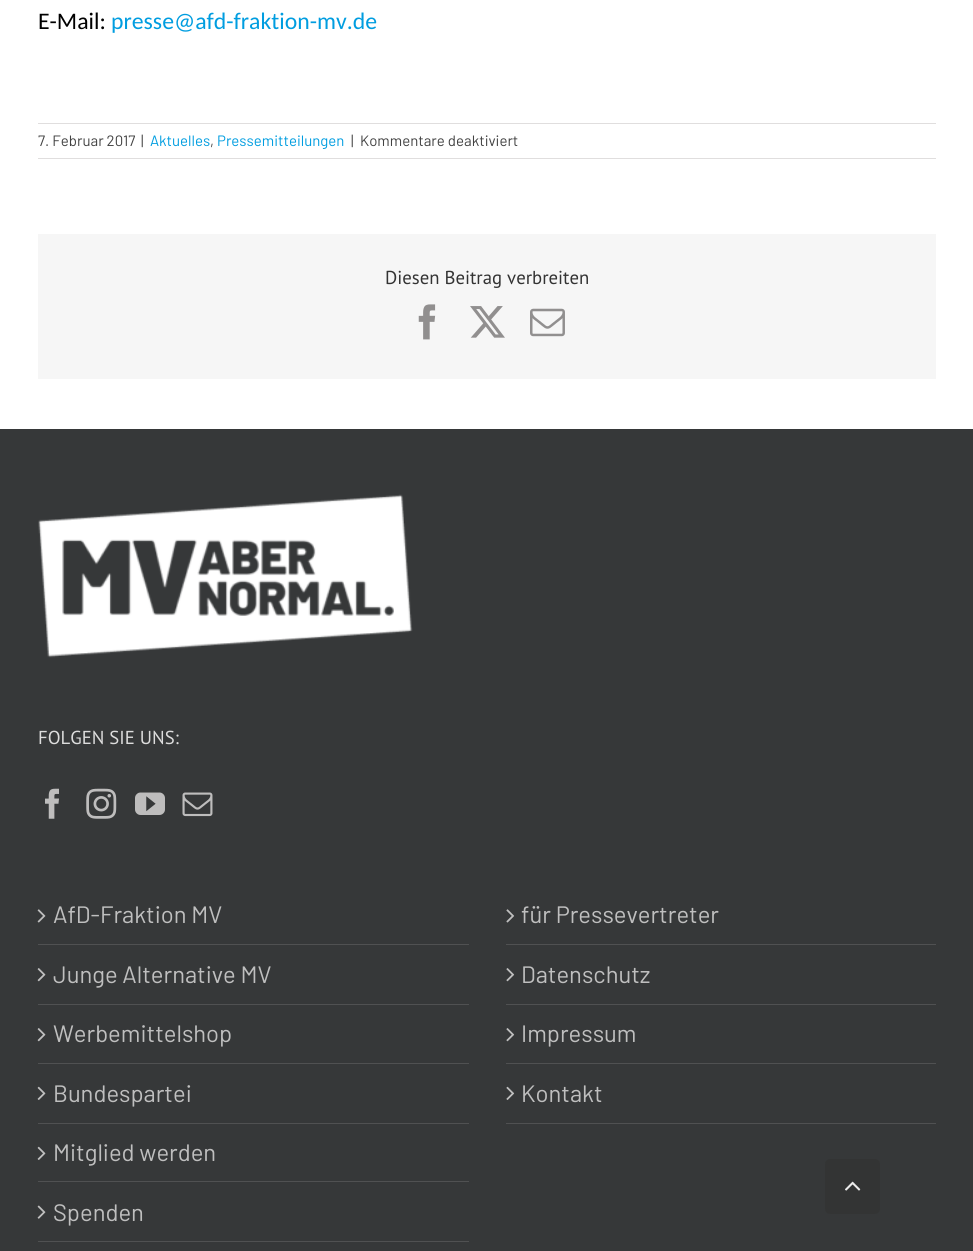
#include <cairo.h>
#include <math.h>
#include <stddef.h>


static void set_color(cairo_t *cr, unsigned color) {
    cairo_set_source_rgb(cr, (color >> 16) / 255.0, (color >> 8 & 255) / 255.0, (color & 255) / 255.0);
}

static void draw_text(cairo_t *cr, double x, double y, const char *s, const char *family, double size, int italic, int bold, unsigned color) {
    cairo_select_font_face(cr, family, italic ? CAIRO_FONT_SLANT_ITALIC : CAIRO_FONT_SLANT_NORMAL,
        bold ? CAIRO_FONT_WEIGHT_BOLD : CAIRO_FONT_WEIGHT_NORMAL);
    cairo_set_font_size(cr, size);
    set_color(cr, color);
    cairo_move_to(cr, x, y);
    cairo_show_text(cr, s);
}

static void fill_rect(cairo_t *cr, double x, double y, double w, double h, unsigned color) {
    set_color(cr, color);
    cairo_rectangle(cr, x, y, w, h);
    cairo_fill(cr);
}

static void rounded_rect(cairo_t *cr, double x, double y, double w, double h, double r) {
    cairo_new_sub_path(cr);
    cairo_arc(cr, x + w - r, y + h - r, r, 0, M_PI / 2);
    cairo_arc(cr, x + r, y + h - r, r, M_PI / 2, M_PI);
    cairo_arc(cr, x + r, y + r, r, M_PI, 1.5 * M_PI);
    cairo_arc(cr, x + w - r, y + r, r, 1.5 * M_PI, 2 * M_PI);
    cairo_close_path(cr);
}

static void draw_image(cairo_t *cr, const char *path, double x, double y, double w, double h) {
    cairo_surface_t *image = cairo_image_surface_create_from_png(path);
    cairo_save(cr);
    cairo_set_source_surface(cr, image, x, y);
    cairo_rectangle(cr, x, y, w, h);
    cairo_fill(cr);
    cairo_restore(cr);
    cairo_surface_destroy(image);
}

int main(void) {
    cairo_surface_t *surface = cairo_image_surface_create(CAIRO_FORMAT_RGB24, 973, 1251);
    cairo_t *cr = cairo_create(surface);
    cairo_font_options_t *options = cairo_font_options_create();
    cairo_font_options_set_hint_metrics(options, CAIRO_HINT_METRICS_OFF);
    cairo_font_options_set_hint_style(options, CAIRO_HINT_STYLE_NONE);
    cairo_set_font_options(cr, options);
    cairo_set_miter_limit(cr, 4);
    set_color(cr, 0xFFFFFF);
    cairo_paint(cr);
    draw_text(cr, 38, 29, "E-Mail:", "Carlito", 23.75, 0, 0, 0x000000);
    draw_text(cr, 111, 29, "presse@afd-fraktion-mv.de", "Carlito", 23.75, 0, 0, 0x009DE0);
    fill_rect(cr, 38, 123, 898, 1, 0xE0DEDE);
    fill_rect(cr, 38, 158, 898, 1, 0xE0DEDE);
    draw_text(cr, 38, 146, "7. Februar 2017", "Barlow", 15, 0, 0, 0x424242);
    draw_text(cr, 141, 146, "|", "Barlow", 15, 0, 0, 0x424242);
    draw_text(cr, 150, 146, "Aktuelles", "Barlow", 15, 0, 0, 0x009DE0);
    draw_text(cr, 210, 146, ",", "Barlow", 15, 0, 0, 0x424242);
    draw_text(cr, 217, 146, "Pressemitteilungen", "Barlow", 15, 0, 0, 0x009DE0);
    draw_text(cr, 351, 146, "|", "Barlow", 15, 0, 0, 0x424242);
    draw_text(cr, 360, 146, "Kommentare deaktiviert", "Barlow", 15, 0, 0, 0x424242);
    fill_rect(cr, 38, 234, 898, 145, 0xF6F6F6);
    draw_text(cr, 385, 284, "Diesen Beitrag verbreiten", "PT Sans", 18.75, 0, 0, 0x333333);
    draw_image(cr, "assets/img1.png", 418, 304, 18, 36);
    draw_image(cr, "assets/img2.png", 470, 306, 35, 32);
    draw_image(cr, "assets/img3.png", 530, 308, 35, 29);
    fill_rect(cr, 0, 429, 973, 822, 0x363839);
    draw_image(cr, "assets/img4.png", 38, 494, 375, 164);
    draw_text(cr, 38, 744, "FOLGEN SIE UNS:", "PT Sans", 18.75, 0, 0, 0xDDDDDD);
    draw_image(cr, "assets/img5.png", 45, 788, 14, 31);
    draw_image(cr, "assets/img6.png", 86, 788, 31, 31);
    draw_image(cr, "assets/img7.png", 135, 792, 30, 23);
    draw_image(cr, "assets/img8.png", 182, 792, 31, 25);
    fill_rect(cr, 38, 944, 431, 1, 0x505152);
    draw_image(cr, "assets/img9.png", 37, 909, 9, 14);
    draw_text(cr, 53, 923, "AfD-Fraktion MV", "Barlow", 23.75, 0, 0, 0xBFBFBF);
    fill_rect(cr, 38, 1004, 431, 1, 0x505152);
    draw_image(cr, "assets/img10.png", 37, 968, 9, 14);
    draw_text(cr, 53, 983, "Junge Alternative MV", "Barlow", 23.75, 0, 0, 0xBFBFBF);
    fill_rect(cr, 38, 1063, 431, 1, 0x505152);
    draw_image(cr, "assets/img10.png", 37, 1028, 9, 14);
    draw_text(cr, 53, 1042, "Werbemittelshop", "Barlow", 23.75, 0, 0, 0xBFBFBF);
    fill_rect(cr, 38, 1123, 431, 1, 0x505152);
    draw_image(cr, "assets/img11.png", 37, 1086, 9, 14);
    draw_text(cr, 53, 1102, "Bundespartei", "Barlow", 23.75, 0, 0, 0xBFBFBF);
    fill_rect(cr, 38, 1181, 431, 1, 0x505152);
    draw_image(cr, "assets/img11.png", 37, 1146, 9, 14);
    draw_text(cr, 53, 1161, "Mitglied werden", "Barlow", 23.75, 0, 0, 0xBFBFBF);
    fill_rect(cr, 38, 1241, 431, 1, 0x505152);
    draw_image(cr, "assets/img12.png", 37, 1205, 9, 14);
    draw_text(cr, 53, 1221, "Spenden", "Barlow", 23.75, 0, 0, 0xBFBFBF);
    fill_rect(cr, 506, 944, 430, 1, 0x505152);
    draw_image(cr, "assets/img13.png", 506, 909, 9, 14);
    draw_text(cr, 521, 923, "für Pressevertreter", "Barlow", 23.75, 0, 0, 0xBFBFBF);
    fill_rect(cr, 506, 1004, 430, 1, 0x505152);
    draw_image(cr, "assets/img14.png", 506, 968, 9, 14);
    draw_text(cr, 521, 983, "Datenschutz", "Barlow", 23.75, 0, 0, 0xBFBFBF);
    fill_rect(cr, 506, 1063, 430, 1, 0x505152);
    draw_image(cr, "assets/img14.png", 506, 1028, 9, 14);
    draw_text(cr, 521, 1042, "Impressum", "Barlow", 23.75, 0, 0, 0xBFBFBF);
    fill_rect(cr, 506, 1123, 430, 1, 0x505152);
    draw_image(cr, "assets/img15.png", 506, 1086, 9, 14);
    draw_text(cr, 521, 1102, "Kontakt", "Barlow", 23.75, 0, 0, 0xBFBFBF);
    set_color(cr, 0x333434);
    rounded_rect(cr, 825, 1159, 55, 55, 5);
    cairo_fill(cr);
    draw_image(cr, "assets/img16.png", 845, 1181, 16, 10);
    cairo_surface_write_to_png(surface, "output.png");
    cairo_font_options_destroy(options);
    cairo_destroy(cr);
    cairo_surface_destroy(surface);
    return 0;
}
